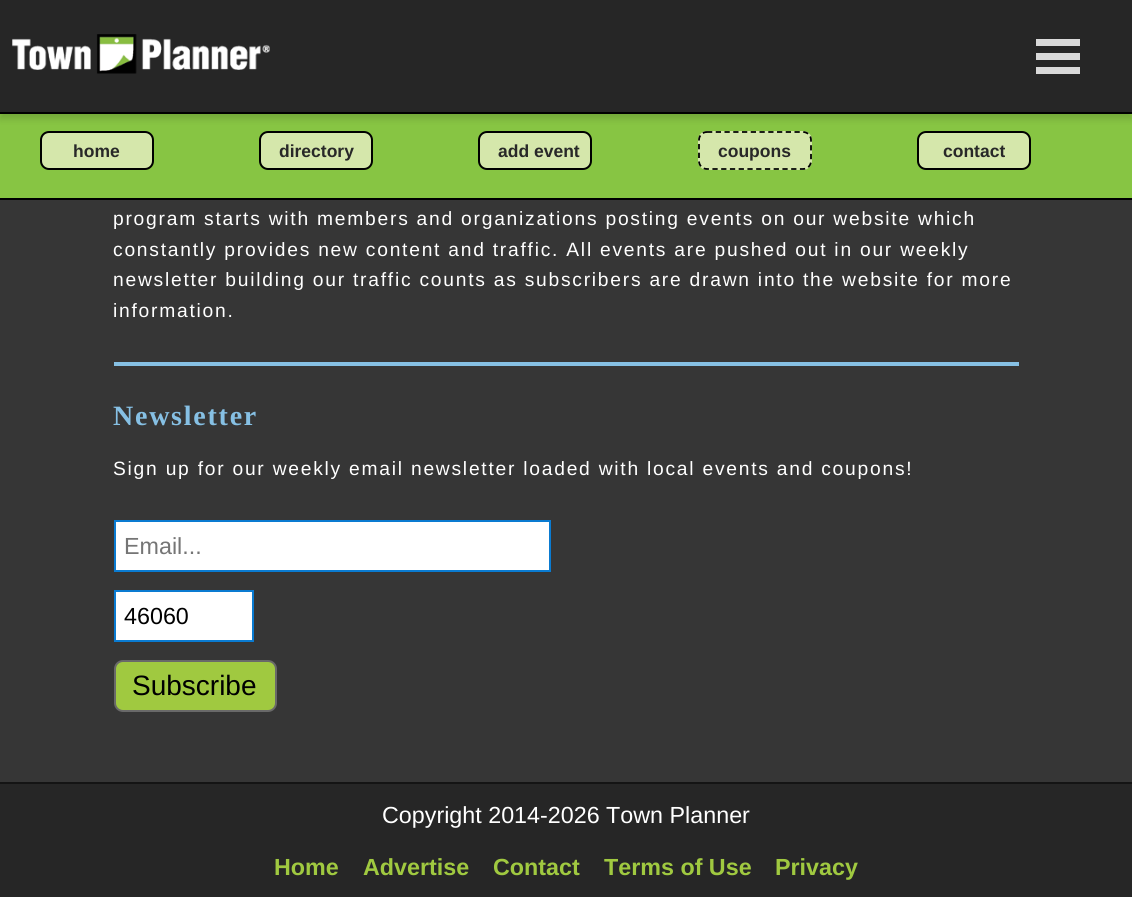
#include <cairo.h>
#include <math.h>
#include <stddef.h>


static void set_color(cairo_t *cr, unsigned color) {
    cairo_set_source_rgb(cr, (color >> 16) / 255.0, (color >> 8 & 255) / 255.0, (color & 255) / 255.0);
}

static void draw_text(cairo_t *cr, double x, double y, const char *s, const char *family, double size, int italic, int bold, unsigned color) {
    cairo_select_font_face(cr, family, italic ? CAIRO_FONT_SLANT_ITALIC : CAIRO_FONT_SLANT_NORMAL,
        bold ? CAIRO_FONT_WEIGHT_BOLD : CAIRO_FONT_WEIGHT_NORMAL);
    cairo_set_font_size(cr, size);
    set_color(cr, color);
    cairo_move_to(cr, x, y);
    cairo_show_text(cr, s);
}

static void draw_spaced(cairo_t *cr, double x, double y, const char *s, double letter, double word) {
    cairo_move_to(cr, x, y);
    while (*s) {
        char ch[5] = {0};
        int n = 0;
        do ch[n++] = *s++; while ((*s & 0xC0) == 0x80);
        cairo_show_text(cr, ch);
        cairo_rel_move_to(cr, letter + word * (*ch == ' '), 0);
    }
}

static void fill_rect(cairo_t *cr, double x, double y, double w, double h, unsigned color) {
    set_color(cr, color);
    cairo_rectangle(cr, x, y, w, h);
    cairo_fill(cr);
}

static void rounded_rect(cairo_t *cr, double x, double y, double w, double h, double r) {
    cairo_new_sub_path(cr);
    cairo_arc(cr, x + w - r, y + h - r, r, 0, M_PI / 2);
    cairo_arc(cr, x + r, y + h - r, r, M_PI / 2, M_PI);
    cairo_arc(cr, x + r, y + r, r, M_PI, 1.5 * M_PI);
    cairo_arc(cr, x + w - r, y + r, r, 1.5 * M_PI, 2 * M_PI);
    cairo_close_path(cr);
}

static void draw_shadow(cairo_t *cr, double x, double y, double w, double h, double r, double blur, double alpha) {
    cairo_push_group_with_content(cr, CAIRO_CONTENT_ALPHA);
    cairo_set_operator(cr, CAIRO_OPERATOR_SOURCE);
    for (int i = 15; i >= -15 && fmin(w, h) + blur * i / 3 > 0; i -= 2) {
        double e = blur * i / 6;
        cairo_set_source_rgba(cr, 0, 0, 0, alpha * erfc((i - 1) / 8.5) / 2);
        rounded_rect(cr, x - e, y - e, w + 2 * e, h + 2 * e, fmax(0, fmin(r + e + blur * .6, fmin(w, h) / 2 + e)));
        cairo_fill(cr);
    }
    cairo_pattern_t *soft = cairo_pop_group(cr);
    cairo_mask(cr, soft);
    cairo_pattern_destroy(soft);
}

static void draw_image(cairo_t *cr, const char *path, double x, double y, double w, double h) {
    cairo_surface_t *image = cairo_image_surface_create_from_png(path);
    cairo_save(cr);
    cairo_set_source_surface(cr, image, x, y);
    cairo_rectangle(cr, x, y, w, h);
    cairo_fill(cr);
    cairo_restore(cr);
    cairo_surface_destroy(image);
}

int main(void) {
    cairo_surface_t *surface = cairo_image_surface_create(CAIRO_FORMAT_RGB24, 1132, 897);
    cairo_t *cr = cairo_create(surface);
    cairo_font_options_t *options = cairo_font_options_create();
    cairo_font_options_set_hint_metrics(options, CAIRO_HINT_METRICS_OFF);
    cairo_font_options_set_hint_style(options, CAIRO_HINT_STYLE_NONE);
    cairo_set_font_options(cr, options);
    cairo_set_miter_limit(cr, 4);
    set_color(cr, 0x363636);
    cairo_paint(cr);
    fill_rect(cr, 0, 114, 1132, 84, 0x87C543);
    fill_rect(cr, 0, 112, 1132, 2, 0x000000);
    set_color(cr, 0x000000);
    draw_shadow(cr, 0, 7, 1132, 112, 0, 3.5, 0.15);
    fill_rect(cr, 0, 0, 1132, 112, 0x262626);
    draw_image(cr, "assets/img1.png", 12, 34, 258, 40);
    fill_rect(cr, 1036, 39, 44, 7, 0xD9D9D9);
    fill_rect(cr, 1036, 53, 44, 7, 0xD9D9D9);
    fill_rect(cr, 1036, 67, 44, 7, 0xD9D9D9);
    fill_rect(cr, 0, 198, 1132, 2, 0x000000);
    set_color(cr, 0xD5E7AB);
    rounded_rect(cr, 41, 132, 112, 37, 8);
    cairo_fill_preserve(cr);
    set_color(cr, 0x000000);
    cairo_stroke(cr);
    draw_text(cr, 73, 157, "home", "Liberation Sans", 17.5, 0, 1, 0x282828);
    set_color(cr, 0xD5E7AB);
    rounded_rect(cr, 260, 132, 112, 37, 8);
    cairo_fill_preserve(cr);
    set_color(cr, 0x000000);
    cairo_stroke(cr);
    draw_text(cr, 279, 157, "directory", "Liberation Sans", 17.5, 0, 1, 0x282828);
    set_color(cr, 0xD5E7AB);
    rounded_rect(cr, 479, 132, 112, 37, 8);
    cairo_fill_preserve(cr);
    set_color(cr, 0x000000);
    cairo_stroke(cr);
    draw_text(cr, 498, 157, "add event", "Liberation Sans", 17.5, 0, 1, 0x282828);
    set_color(cr, 0xD5E7AB);
    rounded_rect(cr, 698, 131, 114, 39, 9);
    cairo_fill(cr);
    cairo_new_path(cr);
    cairo_move_to(cr, 707, 132);
    cairo_line_to(cr, 803, 132);
    cairo_curve_to(cr, 807.5, 132, 811, 135.5, 811, 140);
    cairo_line_to(cr, 811, 161);
    cairo_curve_to(cr, 811, 165.5, 807.5, 169, 803, 169);
    cairo_line_to(cr, 707, 169);
    cairo_curve_to(cr, 702.5, 169, 699, 165.5, 699, 161);
    cairo_line_to(cr, 699, 140);
    cairo_curve_to(cr, 699, 135.5, 702.5, 132, 707, 132);
    cairo_close_path(cr);
    set_color(cr, 0x000000);
    cairo_set_line_width(cr, 1.8);
    cairo_set_dash(cr, (double[]){5.25, 3.5}, 2, 0);
    cairo_stroke(cr);
    draw_text(cr, 718, 157, "coupons", "Liberation Sans", 17.5, 0, 1, 0x282828);
    set_color(cr, 0xD5E7AB);
    rounded_rect(cr, 918, 132, 112, 37, 8);
    cairo_fill_preserve(cr);
    set_color(cr, 0x000000);
    cairo_set_line_width(cr, 2);
    cairo_set_dash(cr, NULL, 0, 0);
    cairo_stroke(cr);
    draw_text(cr, 943, 157, "contact", "Liberation Sans", 17.5, 0, 1, 0x282828);
    fill_rect(cr, 114, 362, 905, 4, 0x86C0E4);
    cairo_select_font_face(cr, "Liberation Sans", CAIRO_FONT_SLANT_NORMAL, CAIRO_FONT_WEIGHT_NORMAL);
    cairo_set_font_size(cr, 19.25);
    set_color(cr, 0xFFFFFF);
    draw_spaced(cr, 113, 225, "program starts with members and organizations posting events on our website which", 1.75, 0);
    draw_spaced(cr, 113, 256, "constantly provides new content and traffic. All events are pushed out in our weekly", 1.75, 0);
    draw_spaced(cr, 113, 286, "newsletter building our traffic counts as subscribers are drawn into the website for more", 1.75, 0);
    draw_spaced(cr, 113, 317, "information.", 1.75, 0);
    cairo_select_font_face(cr, "Liberation Serif", CAIRO_FONT_SLANT_NORMAL, CAIRO_FONT_WEIGHT_BOLD);
    cairo_set_font_size(cr, 28);
    set_color(cr, 0x86C0E4);
    draw_spaced(cr, 113, 425, "Newsletter", 1.75, 0);
    cairo_select_font_face(cr, "Liberation Sans", CAIRO_FONT_SLANT_NORMAL, CAIRO_FONT_WEIGHT_NORMAL);
    cairo_set_font_size(cr, 19.25);
    set_color(cr, 0xFFFFFF);
    draw_spaced(cr, 113, 475, "Sign up for our weekly email newsletter loaded with local events and coupons!", 1.75, 0);
    cairo_rectangle(cr, 115, 521, 435, 50);
    cairo_fill_preserve(cr);
    set_color(cr, 0x0A7BD1);
    cairo_stroke(cr);
    draw_text(cr, 124, 554, "Email...", "Liberation Sans", 23.3, 0, 0, 0x757575);
    set_color(cr, 0xFFFFFF);
    cairo_rectangle(cr, 115, 591, 138, 50);
    cairo_fill_preserve(cr);
    set_color(cr, 0x0A7BD1);
    cairo_stroke(cr);
    draw_text(cr, 124, 624, "46060", "Liberation Sans", 23.3, 0, 0, 0x000000);
    set_color(cr, 0xA0C940);
    rounded_rect(cr, 115, 661, 161, 50, 8);
    cairo_fill_preserve(cr);
    set_color(cr, 0x696969);
    cairo_stroke(cr);
    draw_text(cr, 132, 695, "Subscribe", "Liberation Sans", 28, 0, 0, 0x000000);
    fill_rect(cr, 0, 784, 1132, 113, 0x262626);
    fill_rect(cr, 0, 782, 1132, 2, 0x141414);
    draw_text(cr, 382, 823, "Copyright 2014-2026 Town Planner", "Liberation Sans", 23.3, 0, 0, 0xFFFFFF);
    draw_text(cr, 274, 875, "Home", "Liberation Sans", 23.3, 0, 1, 0xA0C940);
    draw_text(cr, 363, 875, "Advertise", "Liberation Sans", 23.3, 0, 1, 0xA0C940);
    draw_text(cr, 493, 875, "Contact", "Liberation Sans", 23.3, 0, 1, 0xA0C940);
    draw_text(cr, 604, 875, "Terms of Use", "Liberation Sans", 23.3, 0, 1, 0xA0C940);
    draw_text(cr, 775, 875, "Privacy", "Liberation Sans", 23.3, 0, 1, 0xA0C940);
    cairo_surface_write_to_png(surface, "output.png");
    cairo_font_options_destroy(options);
    cairo_destroy(cr);
    cairo_surface_destroy(surface);
    return 0;
}
